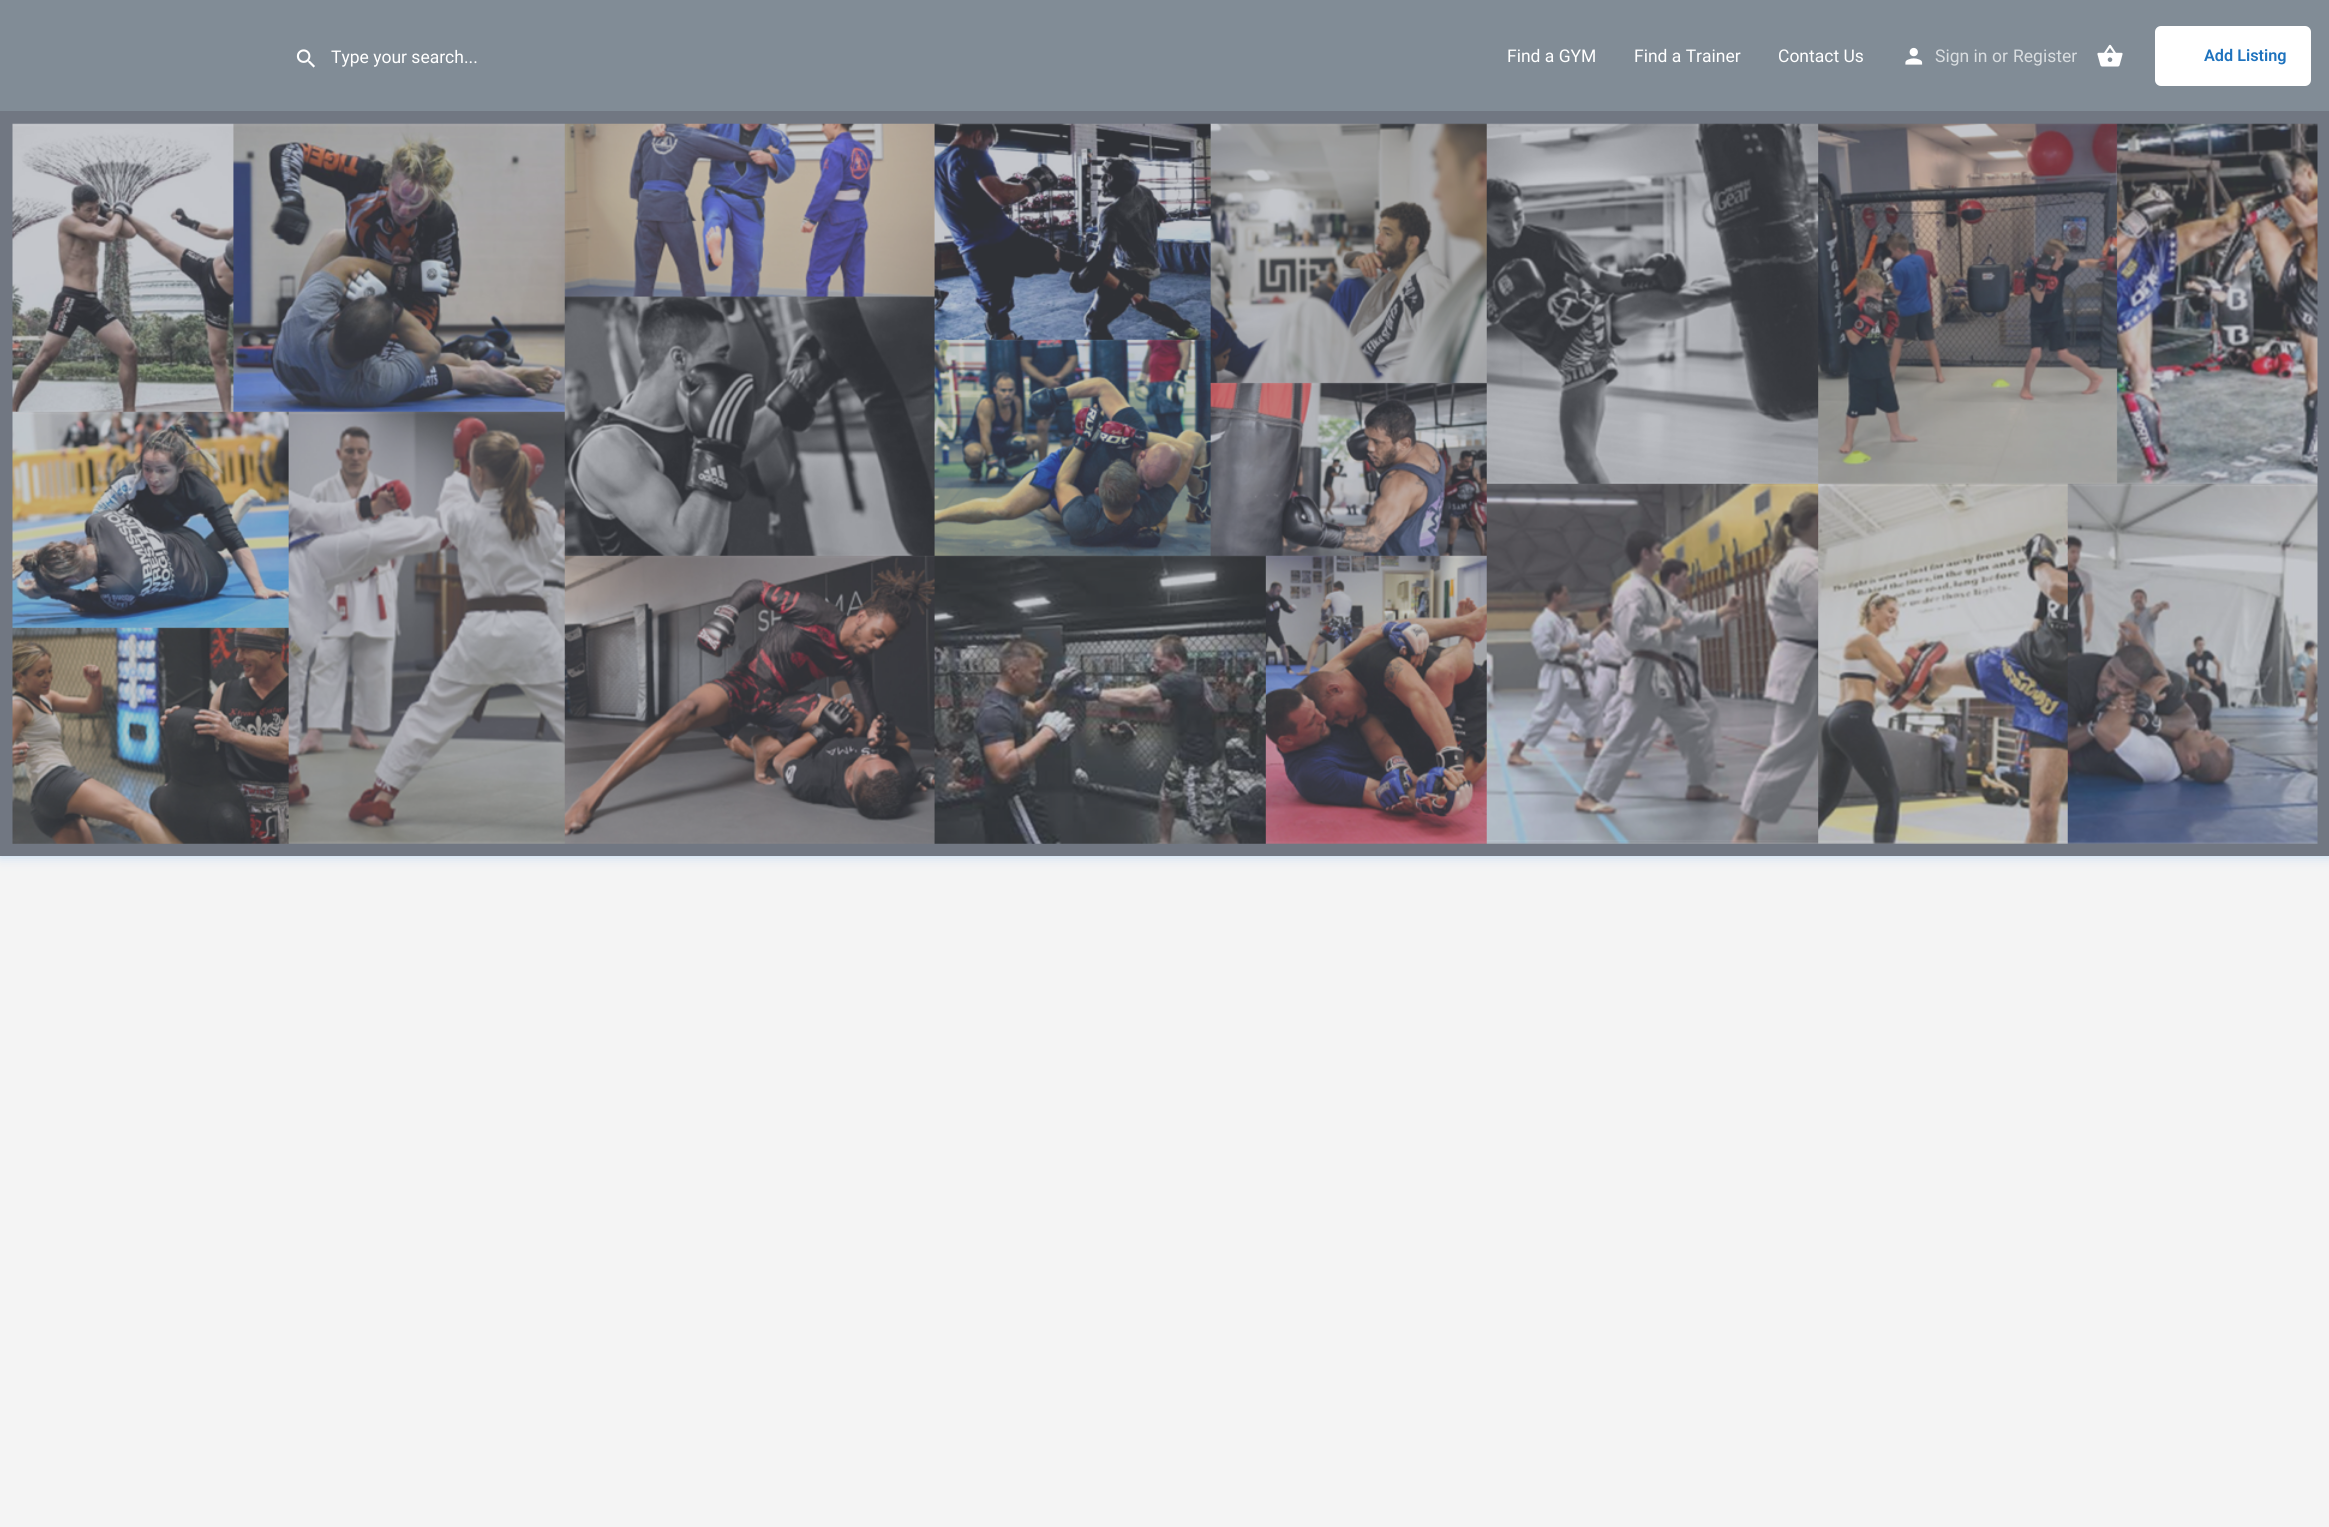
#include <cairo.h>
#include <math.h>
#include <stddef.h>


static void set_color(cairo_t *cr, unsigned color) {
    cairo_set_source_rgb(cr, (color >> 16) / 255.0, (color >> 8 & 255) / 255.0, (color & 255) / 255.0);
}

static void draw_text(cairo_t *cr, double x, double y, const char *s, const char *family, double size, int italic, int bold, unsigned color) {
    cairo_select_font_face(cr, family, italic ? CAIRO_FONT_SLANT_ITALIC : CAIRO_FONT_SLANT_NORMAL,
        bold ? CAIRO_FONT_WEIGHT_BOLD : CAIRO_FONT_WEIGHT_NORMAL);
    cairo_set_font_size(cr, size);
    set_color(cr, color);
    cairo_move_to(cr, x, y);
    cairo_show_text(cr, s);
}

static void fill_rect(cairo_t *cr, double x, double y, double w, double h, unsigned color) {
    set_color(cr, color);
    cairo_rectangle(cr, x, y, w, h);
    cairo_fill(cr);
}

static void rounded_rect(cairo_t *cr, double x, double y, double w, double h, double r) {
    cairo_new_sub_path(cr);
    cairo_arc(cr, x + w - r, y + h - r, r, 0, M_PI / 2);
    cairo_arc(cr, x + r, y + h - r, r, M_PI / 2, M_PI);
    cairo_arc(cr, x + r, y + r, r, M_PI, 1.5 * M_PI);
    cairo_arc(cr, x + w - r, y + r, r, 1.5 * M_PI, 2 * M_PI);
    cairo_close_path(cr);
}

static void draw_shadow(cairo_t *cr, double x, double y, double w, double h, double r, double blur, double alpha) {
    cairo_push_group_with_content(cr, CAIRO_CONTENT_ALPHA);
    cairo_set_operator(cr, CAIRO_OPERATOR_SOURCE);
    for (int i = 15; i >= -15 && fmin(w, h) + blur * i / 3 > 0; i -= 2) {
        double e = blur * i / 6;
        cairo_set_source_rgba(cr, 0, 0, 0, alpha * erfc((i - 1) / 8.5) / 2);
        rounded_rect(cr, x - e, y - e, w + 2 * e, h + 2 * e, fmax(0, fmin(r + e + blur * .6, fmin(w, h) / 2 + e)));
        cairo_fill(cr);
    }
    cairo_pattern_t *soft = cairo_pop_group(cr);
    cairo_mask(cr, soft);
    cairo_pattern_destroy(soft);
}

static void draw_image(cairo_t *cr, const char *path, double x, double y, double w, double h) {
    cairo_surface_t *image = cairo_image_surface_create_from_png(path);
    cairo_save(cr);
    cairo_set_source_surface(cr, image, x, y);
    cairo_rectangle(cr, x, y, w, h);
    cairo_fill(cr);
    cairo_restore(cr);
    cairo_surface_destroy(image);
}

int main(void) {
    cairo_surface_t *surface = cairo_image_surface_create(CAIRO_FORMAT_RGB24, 2329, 1527);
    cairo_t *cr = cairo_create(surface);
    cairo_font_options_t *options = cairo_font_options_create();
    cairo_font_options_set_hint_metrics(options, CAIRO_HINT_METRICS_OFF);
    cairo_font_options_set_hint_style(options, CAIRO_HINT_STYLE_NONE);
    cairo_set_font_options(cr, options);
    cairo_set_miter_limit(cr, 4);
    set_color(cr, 0xF4F4F4);
    cairo_paint(cr);
    fill_rect(cr, 0, 111, 2329, 745, 0x17172E);
    cairo_save(cr);
    cairo_set_fill_rule(cr, CAIRO_FILL_RULE_EVEN_ODD);
    cairo_new_path(cr);
    cairo_move_to(cr, 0, 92);
    cairo_line_to(cr, 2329, 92);
    cairo_line_to(cr, 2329, 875);
    cairo_line_to(cr, 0, 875);
    cairo_close_path(cr);
    cairo_move_to(cr, 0, 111);
    cairo_line_to(cr, 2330, 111);
    cairo_line_to(cr, 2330, 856);
    cairo_line_to(cr, 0, 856);
    cairo_close_path(cr);
    cairo_clip(cr);
    set_color(cr, 0x77B1EA);
    draw_shadow(cr, 0, 111, 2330, 745, 0, 6, 0.46);
    cairo_restore(cr);
    fill_rect(cr, 0, 0, 2329, 111, 0x818C96);
    draw_image(cr, "assets/img1.png", 296, 49, 19, 19);
    draw_text(cr, 331, 63, "Type your search...", "Roboto", 17.5, 0, 0, 0xFFFFFF);
    draw_text(cr, 1507, 62, "Find a GYM", "Roboto", 17.5, 0, 0, 0xFFFFFF);
    draw_text(cr, 1634, 62, "Find a Trainer", "Roboto", 17.5, 0, 0, 0xFFFFFF);
    draw_text(cr, 1778, 62, "Contact Us", "Roboto", 17.5, 0, 0, 0xFFFFFF);
    draw_image(cr, "assets/img2.png", 1905, 47, 18, 18);
    draw_text(cr, 1935, 62, "Sign in", "Roboto", 17.5, 0, 0, 0xD9DDE0);
    draw_text(cr, 1992, 62, "or", "Roboto", 17.5, 0, 0, 0xD9DDE0);
    draw_text(cr, 2013, 62, "Register", "Roboto", 17.5, 0, 0, 0xD9DDE0);
    draw_image(cr, "assets/img3.png", 2097, 44, 26, 23);
    set_color(cr, 0xFFFFFF);
    rounded_rect(cr, 2155, 26, 156, 60, 6);
    cairo_fill(cr);
    draw_text(cr, 2204, 61, "Add Listing", "Roboto SemiBold", 16.25, 0, 0, 0x1E73BE);
    cairo_set_source_rgba(cr, 0.694, 0.733, 0.737, 0.59);
    cairo_rectangle(cr, 0, 111, 2329, 745);
    cairo_fill(cr);
    draw_image(cr, "assets/img4.png", 12, 123, 2306, 721);
    cairo_surface_write_to_png(surface, "output.png");
    cairo_font_options_destroy(options);
    cairo_destroy(cr);
    cairo_surface_destroy(surface);
    return 0;
}
